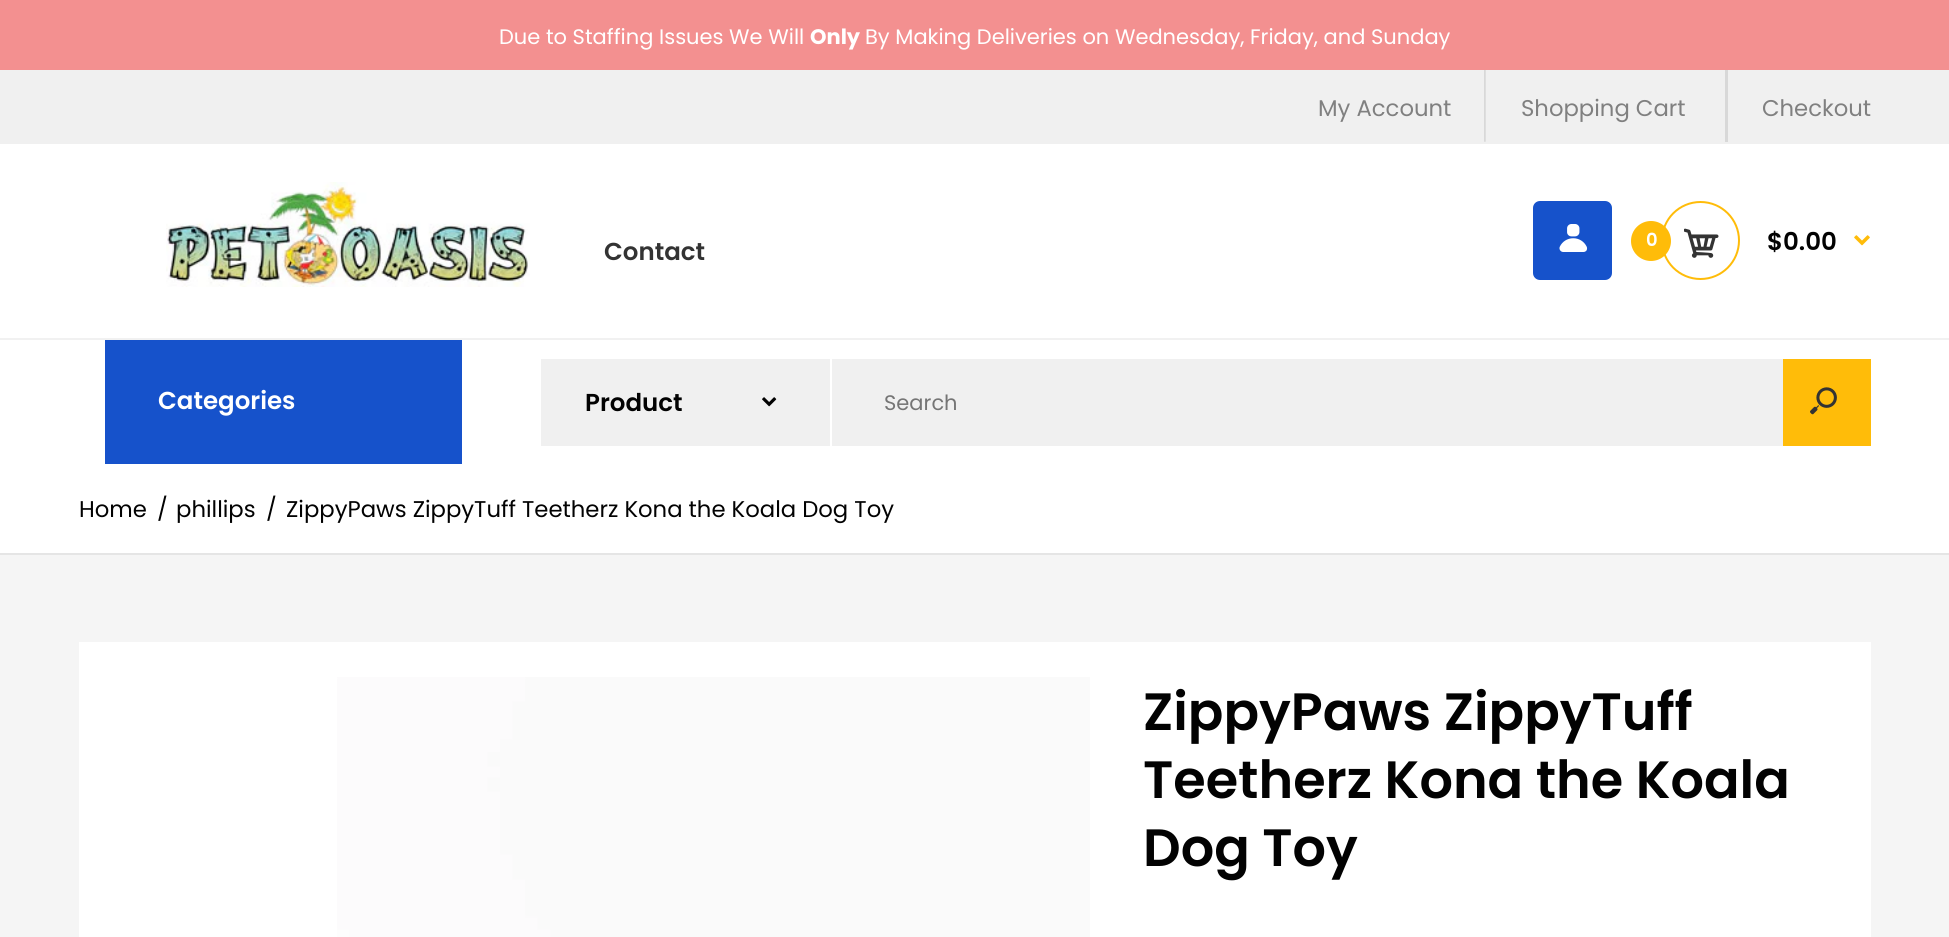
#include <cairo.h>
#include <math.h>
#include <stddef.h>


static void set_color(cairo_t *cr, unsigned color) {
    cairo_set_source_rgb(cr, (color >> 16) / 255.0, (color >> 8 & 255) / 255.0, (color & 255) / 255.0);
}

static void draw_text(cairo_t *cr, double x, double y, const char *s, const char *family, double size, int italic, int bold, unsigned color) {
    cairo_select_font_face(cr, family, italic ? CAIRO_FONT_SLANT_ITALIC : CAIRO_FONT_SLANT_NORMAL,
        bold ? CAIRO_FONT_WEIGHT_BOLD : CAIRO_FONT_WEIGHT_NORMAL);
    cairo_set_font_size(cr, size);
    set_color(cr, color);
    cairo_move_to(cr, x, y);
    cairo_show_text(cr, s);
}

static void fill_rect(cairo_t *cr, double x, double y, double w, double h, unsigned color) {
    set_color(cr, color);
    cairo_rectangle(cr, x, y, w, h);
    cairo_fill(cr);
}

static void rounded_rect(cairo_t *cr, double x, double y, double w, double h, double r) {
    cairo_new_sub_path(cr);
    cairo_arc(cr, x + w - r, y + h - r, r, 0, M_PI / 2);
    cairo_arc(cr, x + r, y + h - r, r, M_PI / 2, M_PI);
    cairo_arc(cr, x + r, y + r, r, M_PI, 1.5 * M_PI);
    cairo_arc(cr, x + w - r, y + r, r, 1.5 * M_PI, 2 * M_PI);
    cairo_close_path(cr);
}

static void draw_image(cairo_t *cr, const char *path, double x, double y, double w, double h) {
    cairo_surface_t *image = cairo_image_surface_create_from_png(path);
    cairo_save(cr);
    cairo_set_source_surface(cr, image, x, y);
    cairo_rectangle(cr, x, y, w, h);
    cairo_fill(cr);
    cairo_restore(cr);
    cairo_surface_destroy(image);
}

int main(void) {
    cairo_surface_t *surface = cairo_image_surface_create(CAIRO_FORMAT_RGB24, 1949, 937);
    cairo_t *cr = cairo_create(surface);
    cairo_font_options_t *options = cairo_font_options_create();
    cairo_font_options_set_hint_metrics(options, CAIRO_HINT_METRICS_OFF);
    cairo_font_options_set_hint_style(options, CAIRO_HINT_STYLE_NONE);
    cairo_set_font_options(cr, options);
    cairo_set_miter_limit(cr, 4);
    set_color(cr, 0xF5F5F5);
    cairo_paint(cr);
    fill_rect(cr, 0, 0, 1949, 70, 0xF39090);
    draw_text(cr, 499, 44, "Due to Staffing Issues We Will", "Poppins", 21, 0, 0, 0xFFFFFF);
    draw_text(cr, 810, 44, "Only", "Poppins", 21, 0, 1, 0xFFFFFF);
    draw_text(cr, 865, 44, "By Making Deliveries on Wednesday, Friday, and Sunday", "Poppins", 21, 0, 0, 0xFFFFFF);
    fill_rect(cr, 0, 144, 1949, 409, 0xFFFFFF);
    fill_rect(cr, 0, 338, 1949, 2, 0xF1F1F1);
    fill_rect(cr, 0, 70, 1949, 74, 0xF0F0F0);
    draw_text(cr, 1318, 116, "My Account", "Poppins", 22.75, 0, 0, 0x808080);
    draw_image(cr, "assets/img1.png", 1484, 70, 2, 72);
    draw_text(cr, 1521, 116, "Shopping Cart", "Poppins", 22.75, 0, 0, 0x808080);
    fill_rect(cr, 1725, 70, 3, 72, 0xD8D8D8);
    draw_text(cr, 1762, 116, "Checkout", "Poppins", 22.75, 0, 0, 0x808080);
    draw_image(cr, "assets/img2.png", 166, 182, 364, 105);
    draw_text(cr, 604, 260, "Contact", "Poppins SemiBold", 24.5, 0, 0, 0x333333);
    set_color(cr, 0x1652CB);
    rounded_rect(cr, 1534, 202, 77, 77, 6);
    cairo_fill_preserve(cr);
    cairo_stroke(cr);
    draw_image(cr, "assets/img3.png", 1559, 224, 29, 28);
    cairo_arc(cr, 1700.5, 240.5, 38.5, 0, 2 * M_PI);
    set_color(cr, 0xFFBC09);
    cairo_stroke(cr);
    cairo_arc(cr, 1651, 241, 20, 0, 2 * M_PI);
    cairo_fill(cr);
    draw_text(cr, 1646, 246, "0", "Poppins SemiBold", 18, 0, 0, 0xFFFFFF);
    draw_image(cr, "assets/img4.png", 1684, 228, 35, 30);
    draw_text(cr, 1767, 250, "$0.00", "Poppins SemiBold", 24.5, 0, 0, 0x020202);
    draw_image(cr, "assets/img5.png", 1854, 235, 16, 11);
    fill_rect(cr, 105, 340, 357, 124, 0x1652CB);
    draw_text(cr, 158, 409, "Categories", "Poppins SemiBold", 24.5, 0, 0, 0xFFFFFF);
    fill_rect(cr, 541, 359, 1242, 87, 0xF0F0F0);
    fill_rect(cr, 830, 359, 2, 87, 0xFFFFFF);
    draw_text(cr, 585, 411, "Product", "Poppins SemiBold", 24.5, 0, 0, 0x020202);
    draw_image(cr, "assets/img6.png", 762, 397, 15, 10);
    draw_text(cr, 884, 410, "Search", "Poppins", 21, 0, 0, 0x757575);
    fill_rect(cr, 1783, 359, 88, 87, 0xFFBC09);
    draw_image(cr, "assets/img7.png", 1810, 387, 27, 28);
    fill_rect(cr, 0, 553, 1949, 2, 0xE5E5E5);
    draw_text(cr, 79, 517, "Home", "Poppins", 22.75, 0, 0, 0x020202);
    draw_text(cr, 157, 517, "/", "Poppins", 22.75, 0, 0, 0x020202);
    draw_text(cr, 176, 517, "phillips", "Poppins", 22.75, 0, 0, 0x020202);
    draw_text(cr, 266, 517, "/", "Poppins", 22.75, 0, 0, 0x020202);
    draw_text(cr, 286, 517, "ZippyPaws ZippyTuff Teetherz Kona the Koala Dog Toy", "Poppins", 22.75, 0, 0, 0x020202);
    fill_rect(cr, 79, 642, 1792, 295, 0xFFFFFF);
    draw_image(cr, "assets/img8.png", 337, 677, 753, 260);
    draw_text(cr, 1143, 730, "ZippyPaws ZippyTuff", "Poppins SemiBold", 52.5, 0, 0, 0x020202);
    draw_text(cr, 1143, 798, "Teetherz Kona the Koala", "Poppins SemiBold", 52.5, 0, 0, 0x020202);
    draw_text(cr, 1143, 866, "Dog Toy", "Poppins SemiBold", 52.5, 0, 0, 0x020202);
    cairo_surface_write_to_png(surface, "output.png");
    cairo_font_options_destroy(options);
    cairo_destroy(cr);
    cairo_surface_destroy(surface);
    return 0;
}
